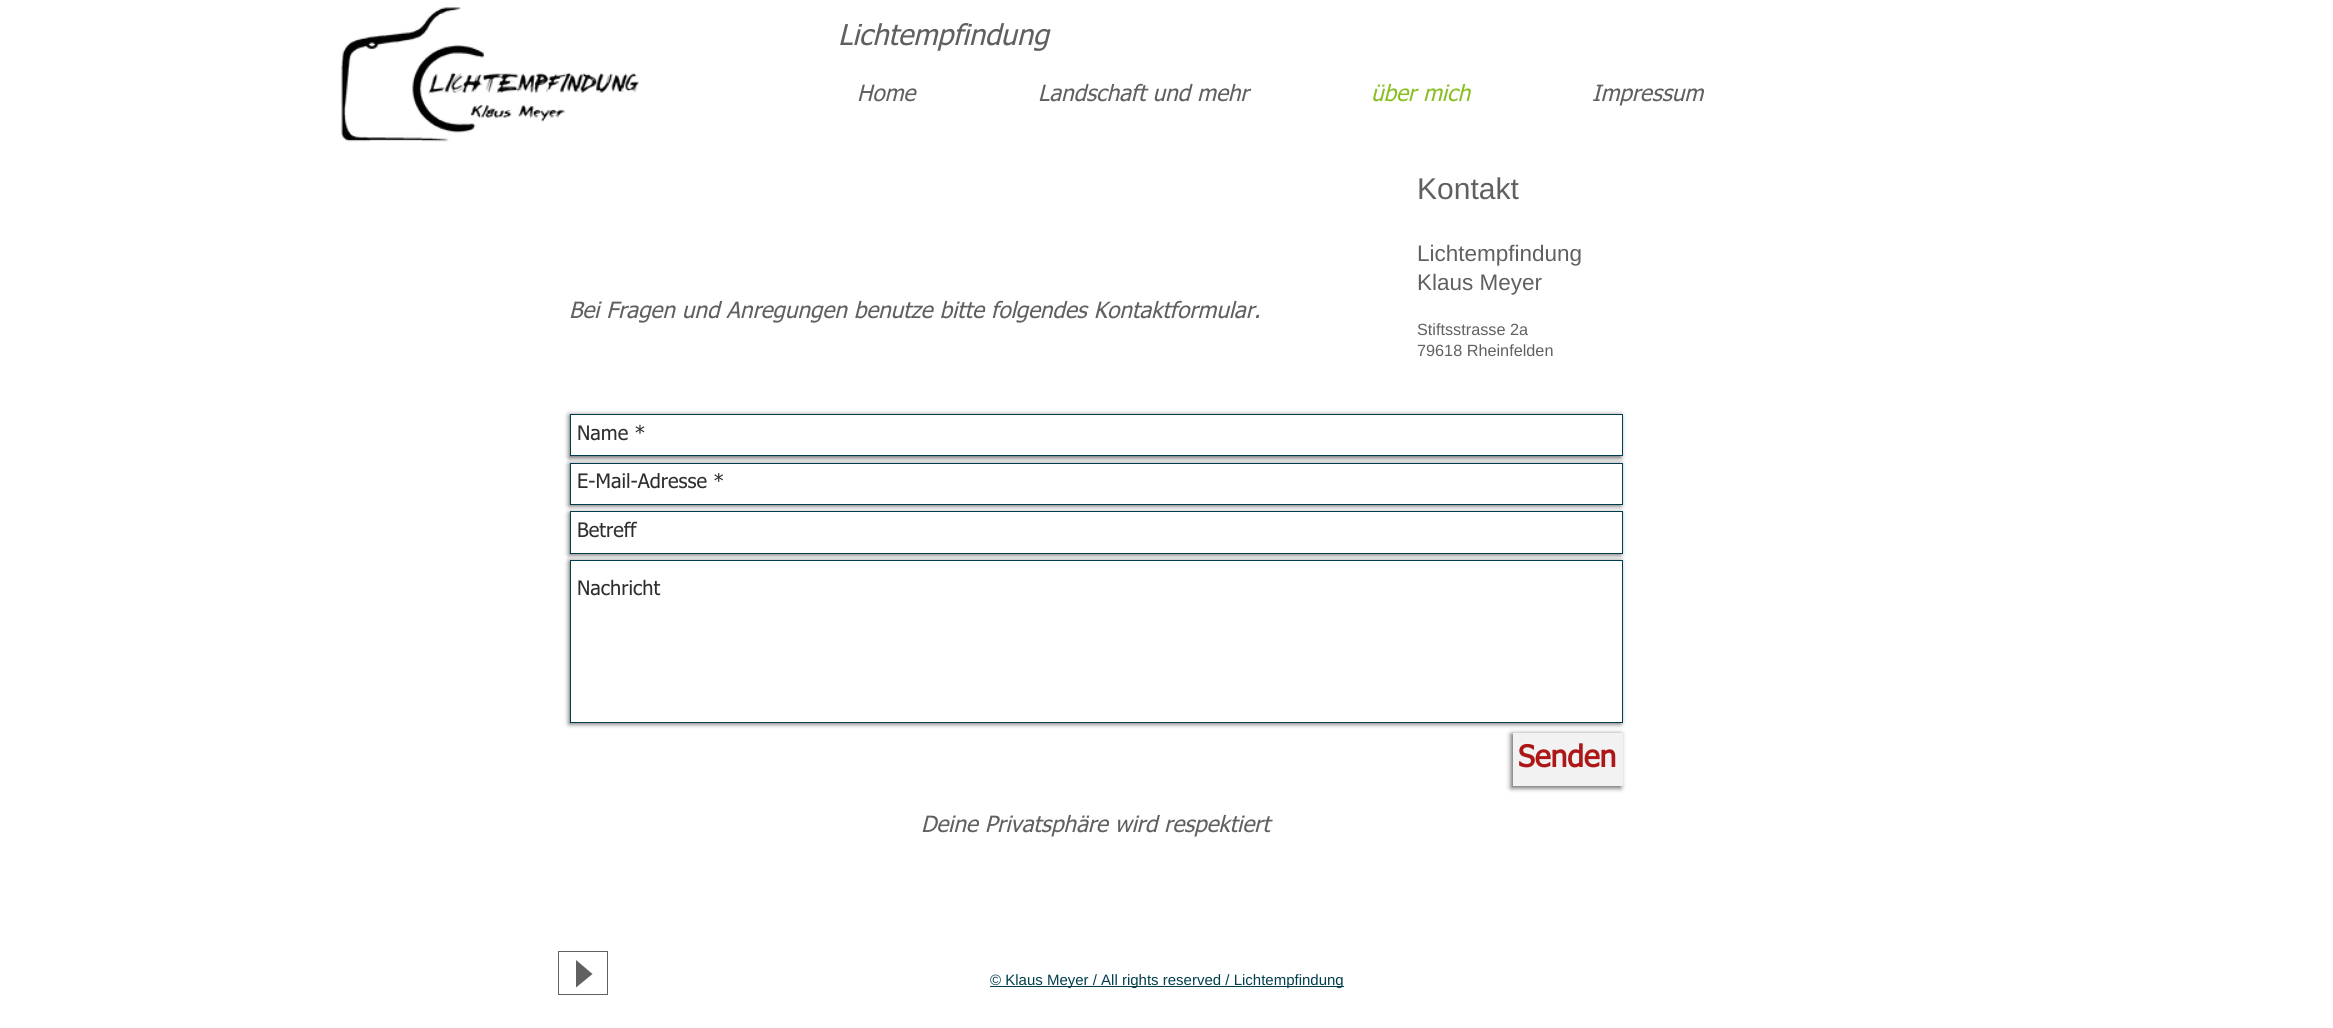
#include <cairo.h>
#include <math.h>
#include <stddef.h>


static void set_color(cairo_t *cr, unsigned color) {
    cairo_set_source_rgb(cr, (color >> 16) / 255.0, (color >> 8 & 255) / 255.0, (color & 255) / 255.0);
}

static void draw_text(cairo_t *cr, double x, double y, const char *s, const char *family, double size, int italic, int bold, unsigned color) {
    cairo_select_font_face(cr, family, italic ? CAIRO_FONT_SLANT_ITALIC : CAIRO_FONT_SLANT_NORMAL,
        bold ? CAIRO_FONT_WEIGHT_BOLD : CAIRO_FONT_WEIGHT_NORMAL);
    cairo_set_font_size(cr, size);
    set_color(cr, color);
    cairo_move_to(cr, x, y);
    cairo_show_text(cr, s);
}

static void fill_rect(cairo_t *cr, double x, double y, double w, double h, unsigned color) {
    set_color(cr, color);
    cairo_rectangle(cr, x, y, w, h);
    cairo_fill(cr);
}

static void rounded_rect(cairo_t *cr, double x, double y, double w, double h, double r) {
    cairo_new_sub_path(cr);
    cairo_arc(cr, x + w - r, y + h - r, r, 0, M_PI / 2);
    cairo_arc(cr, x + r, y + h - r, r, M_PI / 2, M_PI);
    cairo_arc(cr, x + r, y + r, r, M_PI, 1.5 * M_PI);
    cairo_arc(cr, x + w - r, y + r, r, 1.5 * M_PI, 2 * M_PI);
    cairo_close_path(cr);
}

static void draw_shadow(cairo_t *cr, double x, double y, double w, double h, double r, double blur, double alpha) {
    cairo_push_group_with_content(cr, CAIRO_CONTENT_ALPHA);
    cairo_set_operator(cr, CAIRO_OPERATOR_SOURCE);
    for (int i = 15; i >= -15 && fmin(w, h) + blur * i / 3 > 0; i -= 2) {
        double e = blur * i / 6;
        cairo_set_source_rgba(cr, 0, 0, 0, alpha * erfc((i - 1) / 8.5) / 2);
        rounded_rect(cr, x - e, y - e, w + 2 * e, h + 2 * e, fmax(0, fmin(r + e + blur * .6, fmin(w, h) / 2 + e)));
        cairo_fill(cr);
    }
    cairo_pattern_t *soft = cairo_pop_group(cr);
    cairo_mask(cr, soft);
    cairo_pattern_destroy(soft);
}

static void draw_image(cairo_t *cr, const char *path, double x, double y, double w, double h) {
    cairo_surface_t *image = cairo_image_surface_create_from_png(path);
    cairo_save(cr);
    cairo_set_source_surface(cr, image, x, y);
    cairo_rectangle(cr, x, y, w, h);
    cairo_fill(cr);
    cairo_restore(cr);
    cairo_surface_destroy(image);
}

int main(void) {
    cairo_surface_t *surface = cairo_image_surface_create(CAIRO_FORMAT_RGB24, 2333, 1028);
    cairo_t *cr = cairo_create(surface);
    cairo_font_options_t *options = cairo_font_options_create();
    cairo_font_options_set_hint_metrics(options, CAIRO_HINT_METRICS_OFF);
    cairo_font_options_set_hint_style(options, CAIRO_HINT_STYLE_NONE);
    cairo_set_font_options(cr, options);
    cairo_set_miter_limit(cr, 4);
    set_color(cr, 0xFFFFFF);
    cairo_paint(cr);
    draw_image(cr, "assets/img1.png", 341, 7, 298, 135);
    draw_text(cr, 838, 45, "Lichtempfindung", "tahoma", 28.75, 1, 0, 0x606060);
    draw_text(cr, 857, 101, "Home", "tahoma", 22.5, 1, 0, 0x606060);
    draw_text(cr, 1038, 101, "Landschaft und mehr", "tahoma", 22.5, 1, 0, 0x606060);
    draw_text(cr, 1371, 101, "über mich", "tahoma", 22.5, 1, 0, 0x89BF24);
    draw_text(cr, 1592, 101, "Impressum", "tahoma", 22.5, 1, 0, 0x606060);
    draw_text(cr, 569, 318, "Bei Fragen und Anregungen benutze bitte folgendes Kontaktformular.", "tahoma", 22.5, 1, 0, 0x606060);
    draw_text(cr, 1417, 199, "Kontakt", "Liberation Sans", 30, 0, 0, 0x606060);
    draw_text(cr, 1417, 261, "Lichtempfindung", "Liberation Sans", 22.5, 0, 0, 0x606060);
    draw_text(cr, 1417, 290, "Klaus Meyer", "Liberation Sans", 22.5, 0, 0, 0x606060);
    draw_text(cr, 1417, 335, "Stiftsstrasse 2a", "Liberation Sans", 16.25, 0, 0, 0x606060);
    draw_text(cr, 1417, 356, "79618 Rheinfelden", "Liberation Sans", 16.25, 0, 0, 0x606060);
    set_color(cr, 0x000000);
    draw_shadow(cr, 569, 415, 1052, 43, 0, 2.5, 0.6);
    set_color(cr, 0xFFFFFF);
    cairo_rectangle(cr, 570.5, 414.5, 1052, 41);
    cairo_fill_preserve(cr);
    set_color(cr, 0x003E4D);
    cairo_set_line_width(cr, 1);
    cairo_stroke(cr);
    draw_text(cr, 577, 440, "Name *", "tahoma", 20, 0, 0, 0x2F2E2E);
    set_color(cr, 0x000000);
    draw_shadow(cr, 569, 464, 1052, 42, 0, 2.5, 0.6);
    set_color(cr, 0xFFFFFF);
    cairo_rectangle(cr, 570.5, 463.5, 1052, 41);
    cairo_fill_preserve(cr);
    set_color(cr, 0x003E4D);
    cairo_stroke(cr);
    cairo_save(cr);
    cairo_rectangle(cr, 578, 473, 1040, 23);
    cairo_clip(cr);
    draw_text(cr, 577, 488, "E-Mail-Adresse *", "tahoma", 20, 0, 0, 0x2F2E2E);
    cairo_restore(cr);
    set_color(cr, 0x000000);
    draw_shadow(cr, 569, 513, 1052, 42, 0, 2.5, 0.6);
    set_color(cr, 0xFFFFFF);
    cairo_rectangle(cr, 570.5, 511.5, 1052, 42);
    cairo_fill_preserve(cr);
    set_color(cr, 0x003E4D);
    cairo_stroke(cr);
    draw_text(cr, 577, 537, "Betreff", "tahoma", 20, 0, 0, 0x2F2E2E);
    set_color(cr, 0x000000);
    draw_shadow(cr, 569, 561, 1052, 163, 0, 2.5, 0.6);
    set_color(cr, 0xFFFFFF);
    cairo_rectangle(cr, 570.5, 560.5, 1052, 162);
    cairo_fill_preserve(cr);
    set_color(cr, 0x003E4D);
    cairo_stroke(cr);
    draw_text(cr, 577, 595, "Nachricht", "tahoma", 20, 0, 0, 0x2F2E2E);
    set_color(cr, 0x000000);
    draw_shadow(cr, 1511, 734, 110, 54, 0, 2.5, 0.6);
    fill_rect(cr, 1513, 733, 110, 53, 0xF2F2F2);
    draw_text(cr, 1518, 767, "Senden", "tahoma", 30, 0, 1, 0xAD1717);
    draw_text(cr, 921, 832, "Deine Privatsphäre wird respektiert", "tahoma", 22.5, 1, 0, 0x606060);
    cairo_rectangle(cr, 558.5, 951.5, 49, 43);
    cairo_stroke(cr);
    cairo_new_path(cr);
    cairo_move_to(cr, 576, 987.5);
    cairo_line_to(cr, 576, 960);
    cairo_line_to(cr, 592.5, 974);
    cairo_close_path(cr);
    cairo_fill(cr);
    fill_rect(cr, 990, 986, 354, 1, 0x003E4D);
    draw_text(cr, 990, 985, "© Klaus Meyer / All rights reserved / Lichtempfindung", "Liberation Sans", 15, 0, 0, 0x003E4D);
    cairo_surface_write_to_png(surface, "output.png");
    cairo_font_options_destroy(options);
    cairo_destroy(cr);
    cairo_surface_destroy(surface);
    return 0;
}
